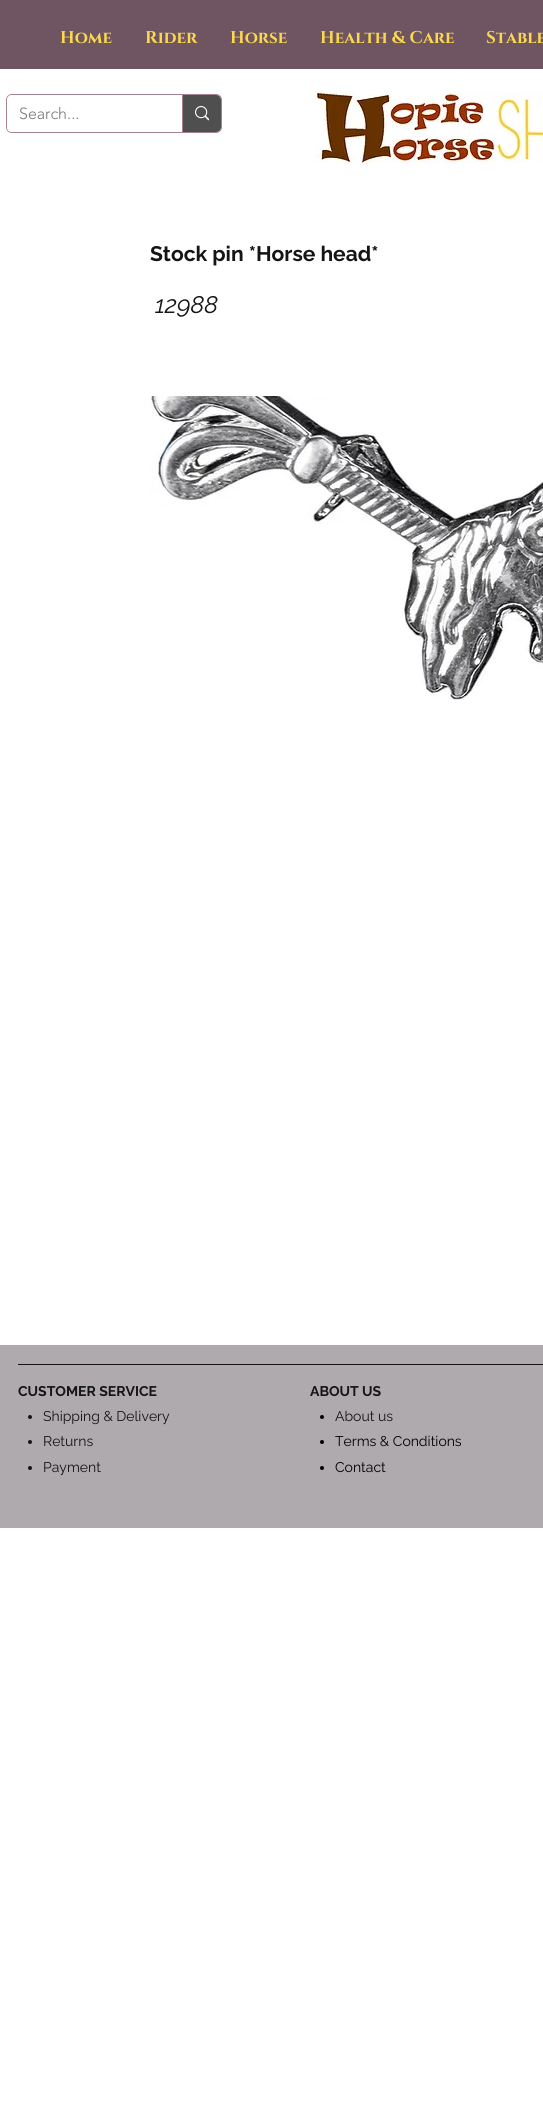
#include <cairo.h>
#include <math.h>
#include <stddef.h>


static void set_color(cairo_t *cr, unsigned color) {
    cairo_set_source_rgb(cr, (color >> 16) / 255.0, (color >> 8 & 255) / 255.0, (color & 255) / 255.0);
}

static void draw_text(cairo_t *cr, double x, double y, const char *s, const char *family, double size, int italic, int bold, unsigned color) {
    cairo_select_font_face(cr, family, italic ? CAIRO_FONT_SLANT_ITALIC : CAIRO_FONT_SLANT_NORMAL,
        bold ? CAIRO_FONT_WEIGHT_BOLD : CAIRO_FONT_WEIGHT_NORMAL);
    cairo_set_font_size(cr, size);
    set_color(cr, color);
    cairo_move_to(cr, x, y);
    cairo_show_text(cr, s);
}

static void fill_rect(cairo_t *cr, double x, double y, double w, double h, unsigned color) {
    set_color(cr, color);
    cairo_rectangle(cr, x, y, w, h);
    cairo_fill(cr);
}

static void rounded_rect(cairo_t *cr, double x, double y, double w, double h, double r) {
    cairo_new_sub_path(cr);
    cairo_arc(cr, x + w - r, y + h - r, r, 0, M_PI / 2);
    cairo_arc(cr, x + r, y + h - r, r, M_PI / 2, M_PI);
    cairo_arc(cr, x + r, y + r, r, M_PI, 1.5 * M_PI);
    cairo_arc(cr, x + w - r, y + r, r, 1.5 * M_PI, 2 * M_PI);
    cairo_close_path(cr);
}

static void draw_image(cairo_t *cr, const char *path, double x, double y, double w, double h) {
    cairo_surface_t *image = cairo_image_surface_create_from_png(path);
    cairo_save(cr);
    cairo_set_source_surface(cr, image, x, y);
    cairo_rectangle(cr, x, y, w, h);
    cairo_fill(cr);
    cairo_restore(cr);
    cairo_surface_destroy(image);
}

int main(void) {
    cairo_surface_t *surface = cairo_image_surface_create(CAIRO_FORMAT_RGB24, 543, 2105);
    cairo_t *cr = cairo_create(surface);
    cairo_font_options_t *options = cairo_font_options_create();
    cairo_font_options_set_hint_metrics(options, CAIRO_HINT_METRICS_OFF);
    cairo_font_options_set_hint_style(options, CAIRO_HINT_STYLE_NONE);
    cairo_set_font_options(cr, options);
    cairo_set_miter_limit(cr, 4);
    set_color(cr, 0xFFFFFF);
    cairo_paint(cr);
    fill_rect(cr, 0, 0, 543, 69, 0x6F5562);
    draw_text(cr, 60, 43, "Home", "Cinzel", 17, 0, 1, 0xFAD94E);
    draw_text(cr, 145, 43, "Rider", "Cinzel", 17, 0, 1, 0xFAD94E);
    draw_text(cr, 230, 43, "Horse", "Cinzel", 17, 0, 1, 0xFAD94E);
    draw_text(cr, 320, 43, "Health & Care", "Cinzel", 17, 0, 1, 0xFAD94E);
    draw_text(cr, 486, 43, "Stable", "Cinzel", 17, 0, 1, 0xFAD94E);
    rounded_rect(cr, 6.5, 94.5, 215, 38, 5.5);
    set_color(cr, 0xA68093);
    cairo_set_line_width(cr, 1);
    cairo_stroke(cr);
    set_color(cr, 0xFFFFFF);
    rounded_rect(cr, 7, 95, 214, 37, 5);
    cairo_fill(cr);
    draw_text(cr, 19, 119, "Search...", "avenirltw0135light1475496 Light", 16, 0, 0, 0x787878);
    set_color(cr, 0x4F4F4F);
    cairo_new_path(cr);
    cairo_move_to(cr, 182, 95);
    cairo_line_to(cr, 216, 95);
    cairo_curve_to(cr, 219, 95, 221, 97, 221, 100);
    cairo_line_to(cr, 221, 127);
    cairo_curve_to(cr, 221, 130, 219, 132, 216, 132);
    cairo_line_to(cr, 182, 132);
    cairo_close_path(cr);
    cairo_fill(cr);
    fill_rect(cr, 182, 95, 1, 37, 0xA68093);
    draw_image(cr, "assets/img1.png", 195, 106, 14, 15);
    draw_image(cr, "assets/img2.png", 315, 91, 228, 73);
    draw_text(cr, 150, 261, "Stock pin *Horse head*", "Raleway", 21, 0, 1, 0x151515);
    draw_text(cr, 155, 313, "12988", "Raleway", 24, 1, 0, 0x151515);
    draw_image(cr, "assets/img3.png", 150, 396, 393, 304);
    fill_rect(cr, 0, 1345, 543, 183, 0xAFAAAD);
    fill_rect(cr, 18, 1364, 525, 1, 0x151515);
    draw_text(cr, 18, 1396, "CUSTOMER SERVICE", "Raleway", 14, 0, 1, 0x151515);
    cairo_new_path(cr);
    cairo_arc(cr, 30, 1417, 2, 0, 2 * M_PI);
    cairo_fill(cr);
    draw_text(cr, 43, 1421, "Shipping & Delivery", "Raleway", 14, 0, 0, 0x151515);
    cairo_new_path(cr);
    cairo_arc(cr, 30, 1442, 2, 0, 2 * M_PI);
    cairo_fill(cr);
    draw_text(cr, 43, 1446, "Returns", "Raleway", 14, 0, 0, 0x151515);
    cairo_new_path(cr);
    cairo_arc(cr, 30, 1468, 2, 0, 2 * M_PI);
    cairo_fill(cr);
    draw_text(cr, 43, 1472, "Payment", "Raleway", 14, 0, 0, 0x151515);
    draw_text(cr, 310, 1396, "ABOUT US", "Raleway", 14, 0, 1, 0x151515);
    set_color(cr, 0x000000);
    cairo_new_path(cr);
    cairo_arc(cr, 322, 1417, 2, 0, 2 * M_PI);
    cairo_fill(cr);
    draw_text(cr, 335, 1421, "About us", "Raleway", 14, 0, 0, 0x151515);
    set_color(cr, 0x000000);
    cairo_new_path(cr);
    cairo_arc(cr, 322, 1442, 2, 0, 2 * M_PI);
    cairo_fill(cr);
    draw_text(cr, 335, 1446, "Terms & Conditions", "Raleway", 14, 0, 0, 0x000000);
    cairo_new_path(cr);
    cairo_arc(cr, 322, 1468, 2, 0, 2 * M_PI);
    cairo_fill(cr);
    draw_text(cr, 335, 1472, "Contact", "Raleway", 14, 0, 0, 0x000000);
    cairo_surface_write_to_png(surface, "output.png");
    cairo_font_options_destroy(options);
    cairo_destroy(cr);
    cairo_surface_destroy(surface);
    return 0;
}
